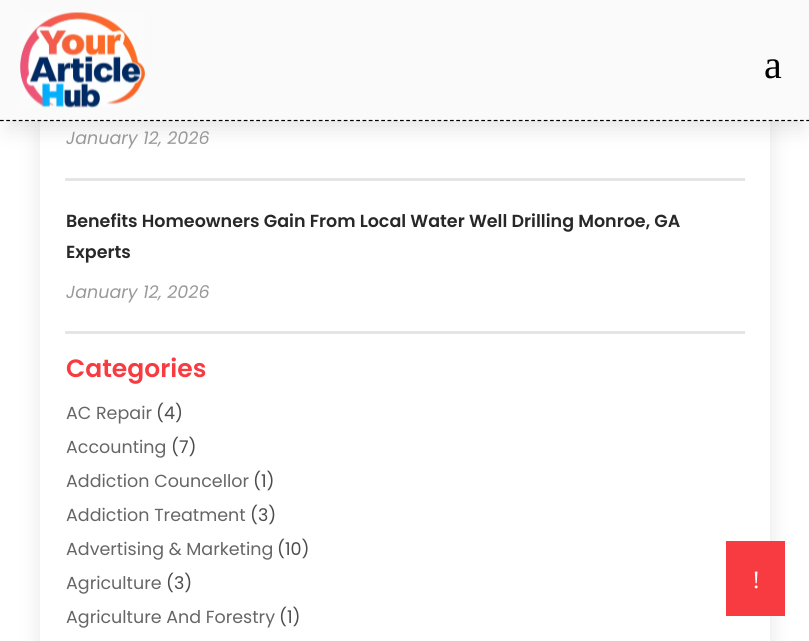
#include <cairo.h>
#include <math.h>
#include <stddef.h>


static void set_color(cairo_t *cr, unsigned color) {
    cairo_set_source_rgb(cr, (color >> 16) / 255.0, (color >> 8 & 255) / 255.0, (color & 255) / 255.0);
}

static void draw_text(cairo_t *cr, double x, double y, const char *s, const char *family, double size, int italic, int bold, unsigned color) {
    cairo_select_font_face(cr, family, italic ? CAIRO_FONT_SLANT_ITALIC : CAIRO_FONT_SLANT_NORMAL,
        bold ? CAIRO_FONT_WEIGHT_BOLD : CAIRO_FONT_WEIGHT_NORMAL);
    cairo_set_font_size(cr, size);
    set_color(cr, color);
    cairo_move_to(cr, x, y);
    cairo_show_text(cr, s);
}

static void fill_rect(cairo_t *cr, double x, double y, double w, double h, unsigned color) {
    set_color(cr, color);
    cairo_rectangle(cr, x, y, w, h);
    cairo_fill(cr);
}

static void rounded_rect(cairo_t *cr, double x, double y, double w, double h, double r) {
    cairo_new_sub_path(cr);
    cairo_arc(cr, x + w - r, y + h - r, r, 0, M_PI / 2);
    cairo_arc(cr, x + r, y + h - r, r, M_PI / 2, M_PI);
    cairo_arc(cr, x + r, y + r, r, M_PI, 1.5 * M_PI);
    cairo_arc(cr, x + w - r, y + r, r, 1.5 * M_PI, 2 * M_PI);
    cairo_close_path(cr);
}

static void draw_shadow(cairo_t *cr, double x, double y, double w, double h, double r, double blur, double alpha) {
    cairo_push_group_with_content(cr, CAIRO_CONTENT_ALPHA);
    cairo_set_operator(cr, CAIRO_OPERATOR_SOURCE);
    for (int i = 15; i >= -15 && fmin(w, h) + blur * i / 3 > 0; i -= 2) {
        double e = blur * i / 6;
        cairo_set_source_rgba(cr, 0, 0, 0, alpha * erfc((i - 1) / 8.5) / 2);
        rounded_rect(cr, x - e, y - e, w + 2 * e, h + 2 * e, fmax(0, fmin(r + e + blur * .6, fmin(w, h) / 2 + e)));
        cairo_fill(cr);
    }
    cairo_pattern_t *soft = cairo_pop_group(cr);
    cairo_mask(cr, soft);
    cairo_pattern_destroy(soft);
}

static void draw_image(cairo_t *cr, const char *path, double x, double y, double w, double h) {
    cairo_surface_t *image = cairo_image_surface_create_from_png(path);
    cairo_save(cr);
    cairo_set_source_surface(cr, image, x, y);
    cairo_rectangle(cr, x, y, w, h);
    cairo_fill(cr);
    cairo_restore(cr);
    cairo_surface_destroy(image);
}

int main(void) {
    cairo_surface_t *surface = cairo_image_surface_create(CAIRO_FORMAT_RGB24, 809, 641);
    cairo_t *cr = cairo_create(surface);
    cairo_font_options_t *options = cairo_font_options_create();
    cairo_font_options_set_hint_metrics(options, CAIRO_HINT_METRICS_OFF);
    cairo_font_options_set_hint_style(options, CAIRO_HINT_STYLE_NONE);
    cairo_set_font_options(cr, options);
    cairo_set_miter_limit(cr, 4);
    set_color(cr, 0xFFFFFF);
    cairo_paint(cr);
    set_color(cr, 0x000000);
    draw_shadow(cr, 8, 23, 795, 106, 0, 11, 0.1);
    cairo_save(cr);
    cairo_set_fill_rule(cr, CAIRO_FILL_RULE_EVEN_ODD);
    cairo_new_path(cr);
    cairo_move_to(cr, 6, 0);
    cairo_line_to(cr, 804, 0);
    cairo_line_to(cr, 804, 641);
    cairo_line_to(cr, 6, 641);
    cairo_close_path(cr);
    cairo_move_to(cr, 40, -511);
    cairo_line_to(cr, 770, -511);
    cairo_line_to(cr, 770, 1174);
    cairo_line_to(cr, 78, 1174);
    cairo_curve_to(cr, 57, 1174, 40, 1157, 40, 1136);
    cairo_close_path(cr);
    cairo_clip(cr);
    draw_shadow(cr, 40, -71, 730, 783, 38, 11, 0.1);
    cairo_restore(cr);
    fill_rect(cr, 0, 0, 809, 121, 0xFBFAFB);
    cairo_new_path(cr);
    cairo_move_to(cr, 0, 120.5);
    cairo_line_to(cr, 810, 120.5);
    set_color(cr, 0x000000);
    cairo_set_line_width(cr, 1.2);
    cairo_set_dash(cr, (double[]){3.75, 2.5}, 2, 0);
    cairo_stroke(cr);
    draw_image(cr, "assets/img1.png", 20, 12, 125, 96);
    draw_text(cr, 764, 78, "a", "Liberation Serif", 40, 0, 0, 0x000000);
    fill_rect(cr, 65, 178, 680, 3, 0xE5E5E5);
    draw_text(cr, 66, 144, "January 12, 2026", "Poppins", 17.5, 1, 0, 0x999999);
    fill_rect(cr, 65, 331, 680, 3, 0xE5E5E5);
    draw_text(cr, 66, 227, "Benefits Homeowners Gain From Local Water Well Drilling Monroe, GA", "Poppins SemiBold", 17.5, 0, 0, 0x282828);
    draw_text(cr, 66, 258, "Experts", "Poppins SemiBold", 17.5, 0, 0, 0x282828);
    draw_text(cr, 66, 298, "January 12, 2026", "Poppins", 17.5, 1, 0, 0x999999);
    draw_text(cr, 66, 377, "Categories", "Poppins SemiBold", 25, 0, 0, 0xF73B41);
    draw_text(cr, 66, 419, "AC Repair", "Poppins", 17.5, 0, 0, 0x666666);
    draw_text(cr, 156, 419, "(4)", "Poppins", 17.5, 0, 0, 0x4C4C4C);
    draw_text(cr, 66, 453, "Accounting", "Poppins", 17.5, 0, 0, 0x666666);
    draw_text(cr, 171, 453, "(7)", "Poppins", 17.5, 0, 0, 0x4C4C4C);
    draw_text(cr, 66, 487, "Addiction Councellor", "Poppins", 17.5, 0, 0, 0x666666);
    draw_text(cr, 253, 487, "(1)", "Poppins", 17.5, 0, 0, 0x4C4C4C);
    draw_text(cr, 66, 521, "Addiction Treatment", "Poppins", 17.5, 0, 0, 0x666666);
    draw_text(cr, 250, 521, "(3)", "Poppins", 17.5, 0, 0, 0x4C4C4C);
    draw_text(cr, 66, 555, "Advertising & Marketing", "Poppins", 17.5, 0, 0, 0x666666);
    draw_text(cr, 277, 555, "(10)", "Poppins", 17.5, 0, 0, 0x4C4C4C);
    draw_text(cr, 66, 589, "Agriculture", "Poppins", 17.5, 0, 0, 0x666666);
    draw_text(cr, 166, 589, "(3)", "Poppins", 17.5, 0, 0, 0x4C4C4C);
    draw_text(cr, 66, 623, "Agriculture And Forestry", "Poppins", 17.5, 0, 0, 0x666666);
    draw_text(cr, 279, 623, "(1)", "Poppins", 17.5, 0, 0, 0x4C4C4C);
    fill_rect(cr, 726, 541, 59, 75, 0xF73B41);
    draw_text(cr, 752, 588, "!", "Liberation Serif", 25, 0, 0, 0xFFFFFF);
    cairo_surface_write_to_png(surface, "output.png");
    cairo_font_options_destroy(options);
    cairo_destroy(cr);
    cairo_surface_destroy(surface);
    return 0;
}
